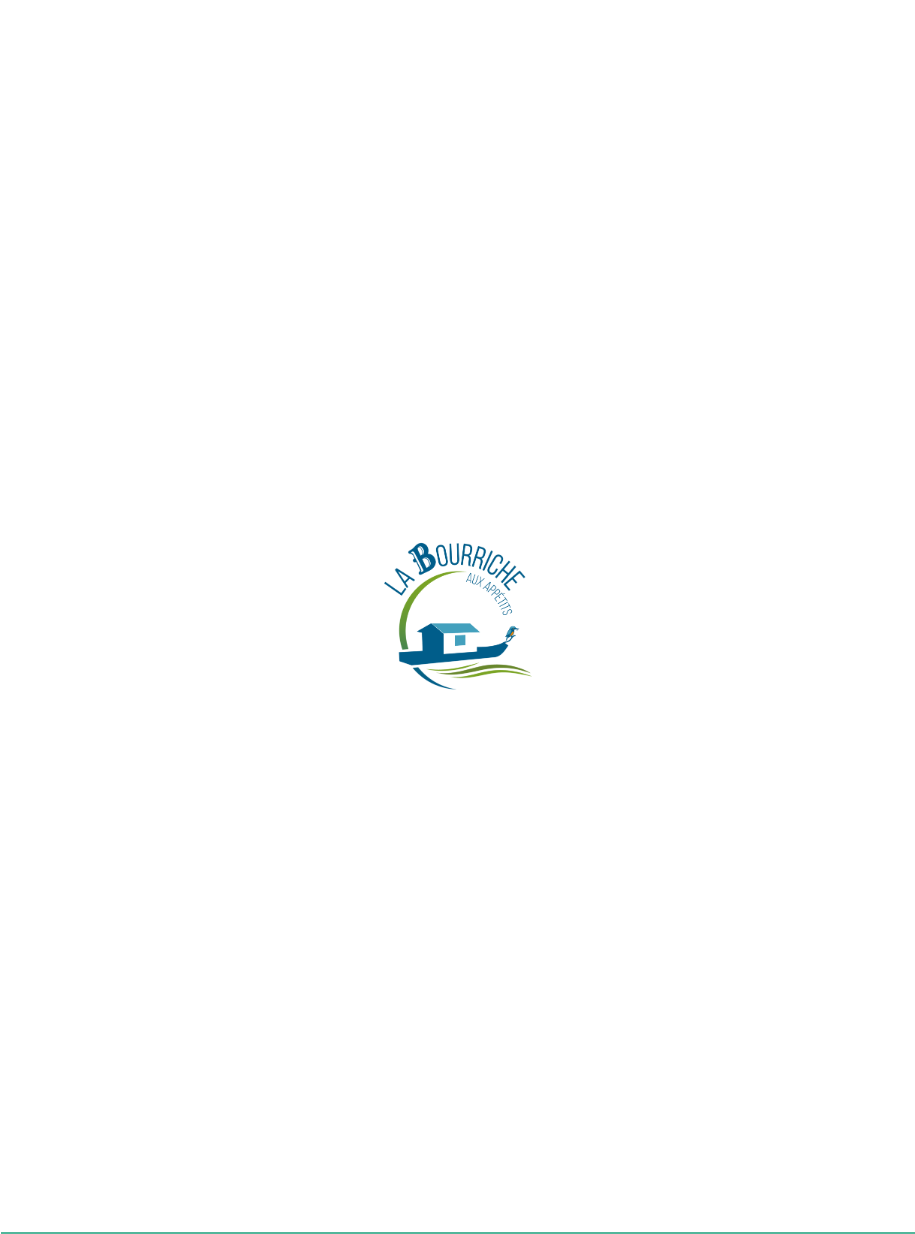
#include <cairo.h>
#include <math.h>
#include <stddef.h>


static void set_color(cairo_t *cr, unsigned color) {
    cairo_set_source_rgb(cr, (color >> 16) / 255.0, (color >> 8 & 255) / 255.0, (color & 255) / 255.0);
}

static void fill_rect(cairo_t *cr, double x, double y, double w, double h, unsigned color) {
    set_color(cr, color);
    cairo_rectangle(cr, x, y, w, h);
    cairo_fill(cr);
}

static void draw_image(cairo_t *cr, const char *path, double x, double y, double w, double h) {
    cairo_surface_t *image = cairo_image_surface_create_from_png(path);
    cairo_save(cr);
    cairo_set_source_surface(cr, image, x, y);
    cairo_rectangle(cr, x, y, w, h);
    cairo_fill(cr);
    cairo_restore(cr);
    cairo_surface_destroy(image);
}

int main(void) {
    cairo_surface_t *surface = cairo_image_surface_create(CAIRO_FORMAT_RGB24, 915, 1234);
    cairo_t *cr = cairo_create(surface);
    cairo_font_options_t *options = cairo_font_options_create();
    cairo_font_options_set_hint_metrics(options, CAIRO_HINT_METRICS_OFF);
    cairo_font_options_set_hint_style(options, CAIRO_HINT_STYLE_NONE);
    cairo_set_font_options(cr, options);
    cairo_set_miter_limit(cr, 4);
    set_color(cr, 0xFFFFFF);
    cairo_paint(cr);
    draw_image(cr, "assets/img1.png", 384, 542, 148, 148);
    fill_rect(cr, 1, 1232, 914, 2, 0x52B69A);
    cairo_surface_write_to_png(surface, "output.png");
    cairo_font_options_destroy(options);
    cairo_destroy(cr);
    cairo_surface_destroy(surface);
    return 0;
}
